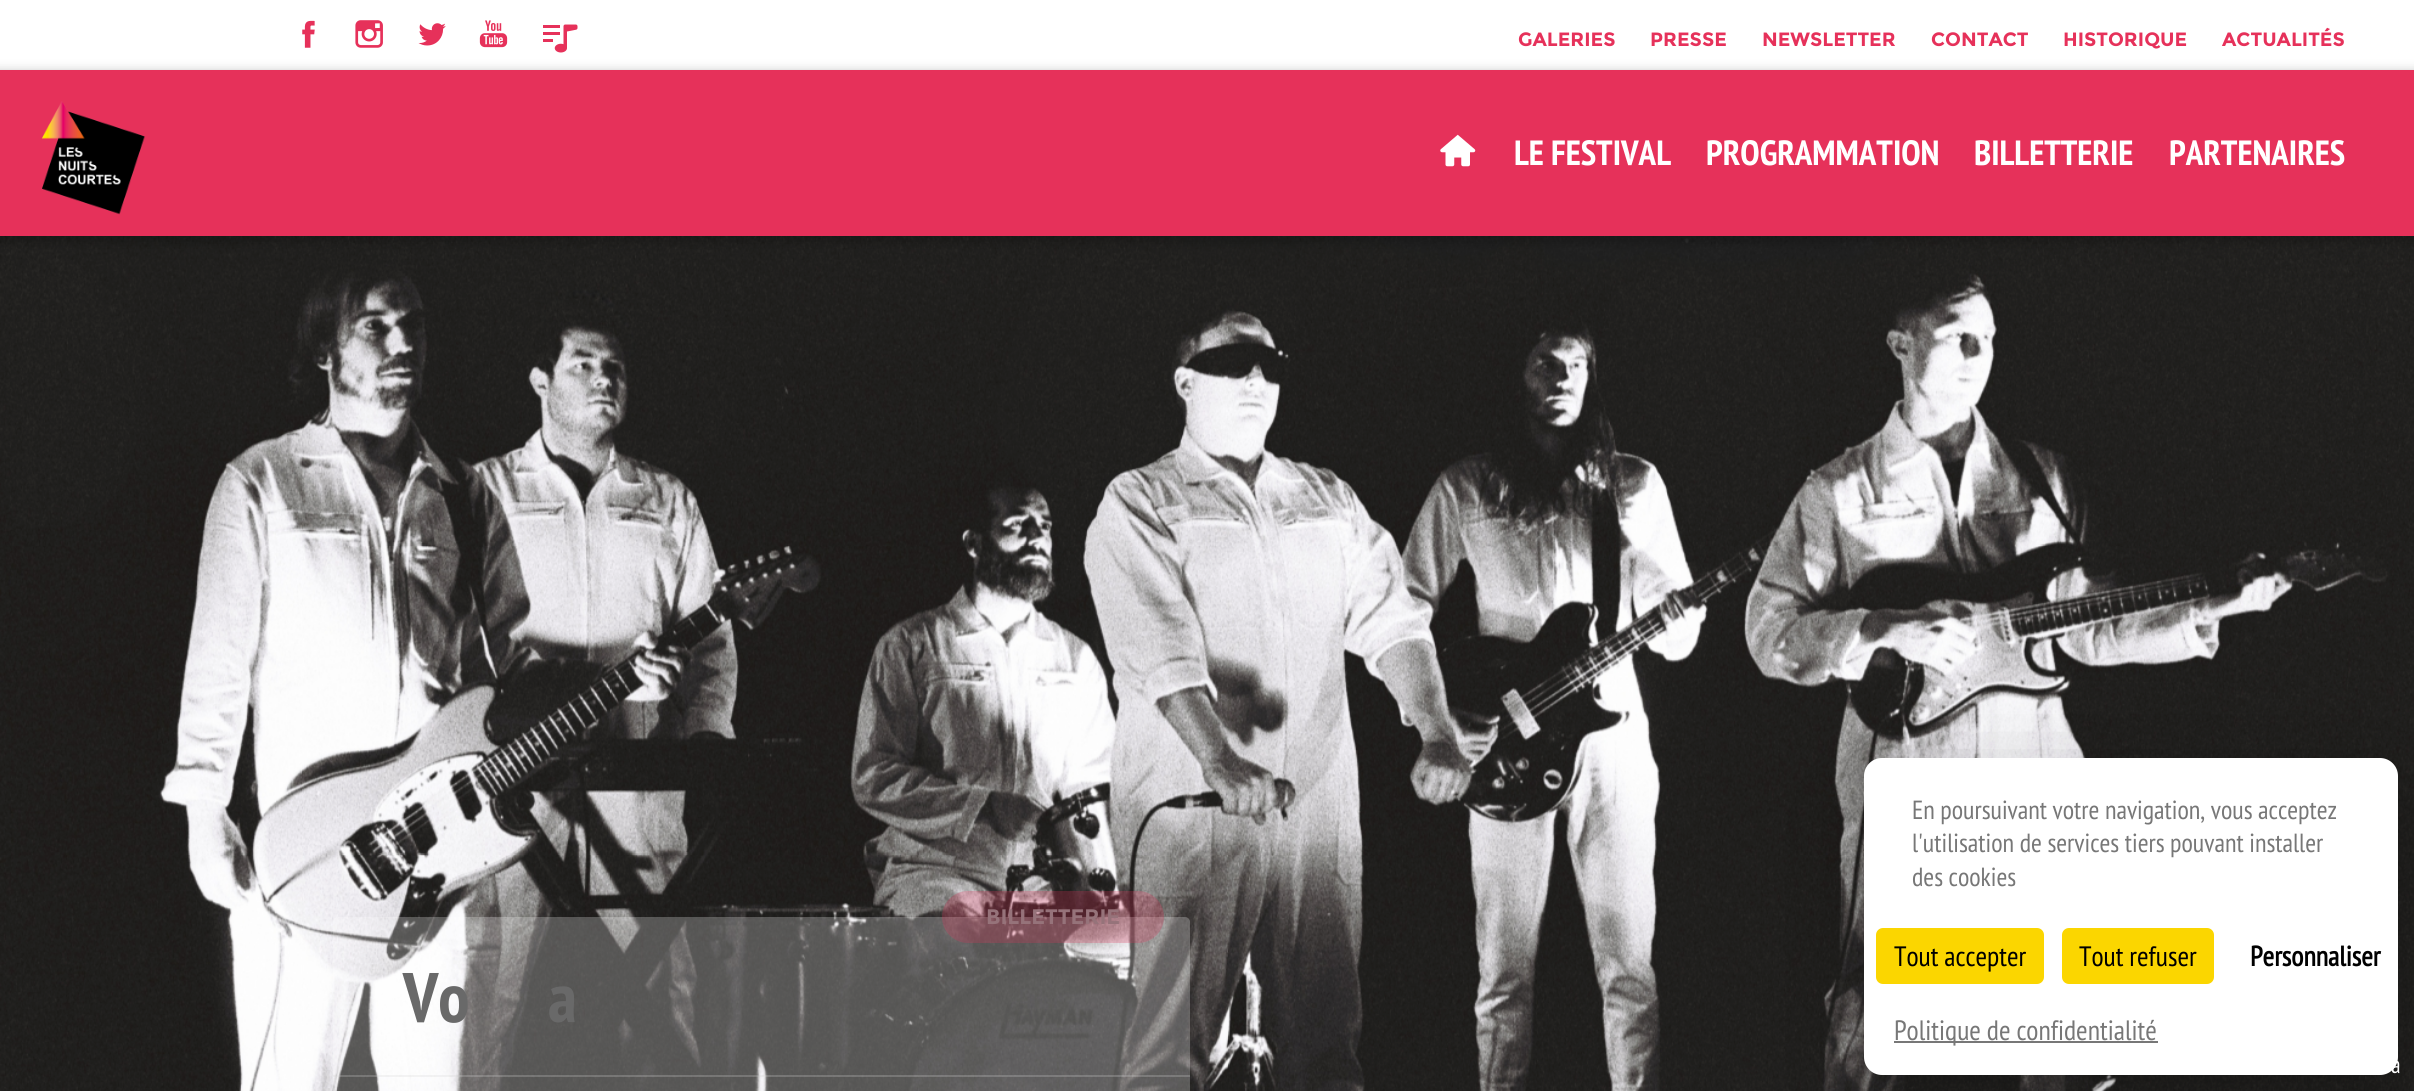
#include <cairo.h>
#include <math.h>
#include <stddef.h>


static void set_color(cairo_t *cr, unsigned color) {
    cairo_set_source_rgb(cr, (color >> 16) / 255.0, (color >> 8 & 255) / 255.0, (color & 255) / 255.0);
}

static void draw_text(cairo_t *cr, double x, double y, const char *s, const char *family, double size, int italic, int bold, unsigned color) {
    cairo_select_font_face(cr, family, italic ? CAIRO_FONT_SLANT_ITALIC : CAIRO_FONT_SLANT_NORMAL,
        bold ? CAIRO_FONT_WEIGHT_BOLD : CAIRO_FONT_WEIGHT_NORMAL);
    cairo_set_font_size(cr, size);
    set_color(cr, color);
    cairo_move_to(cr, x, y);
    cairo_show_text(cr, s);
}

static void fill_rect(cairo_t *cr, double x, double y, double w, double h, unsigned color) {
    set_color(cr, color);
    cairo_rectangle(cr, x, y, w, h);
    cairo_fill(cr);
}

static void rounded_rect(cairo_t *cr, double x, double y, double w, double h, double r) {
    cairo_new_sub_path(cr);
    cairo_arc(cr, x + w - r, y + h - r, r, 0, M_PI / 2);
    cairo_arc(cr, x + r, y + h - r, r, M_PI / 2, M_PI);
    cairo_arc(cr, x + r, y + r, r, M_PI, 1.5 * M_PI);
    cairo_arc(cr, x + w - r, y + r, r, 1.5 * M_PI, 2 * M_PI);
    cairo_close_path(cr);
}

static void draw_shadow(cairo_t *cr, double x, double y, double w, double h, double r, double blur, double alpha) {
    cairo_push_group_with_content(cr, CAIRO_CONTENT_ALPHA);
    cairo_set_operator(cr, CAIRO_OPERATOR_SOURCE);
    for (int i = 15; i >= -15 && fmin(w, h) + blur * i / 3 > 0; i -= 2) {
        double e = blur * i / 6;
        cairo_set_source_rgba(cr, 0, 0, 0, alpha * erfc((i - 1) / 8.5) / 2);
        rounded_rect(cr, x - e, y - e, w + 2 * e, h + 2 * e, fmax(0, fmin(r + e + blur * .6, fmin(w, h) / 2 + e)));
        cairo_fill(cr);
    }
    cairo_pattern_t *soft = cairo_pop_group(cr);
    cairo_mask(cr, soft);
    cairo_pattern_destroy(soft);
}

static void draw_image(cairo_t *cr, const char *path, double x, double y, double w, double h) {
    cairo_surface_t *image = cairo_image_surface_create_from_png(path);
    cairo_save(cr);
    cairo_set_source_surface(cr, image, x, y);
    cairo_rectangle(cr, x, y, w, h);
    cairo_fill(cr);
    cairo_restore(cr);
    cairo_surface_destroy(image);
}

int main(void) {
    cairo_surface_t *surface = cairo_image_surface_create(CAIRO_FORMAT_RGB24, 2414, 1091);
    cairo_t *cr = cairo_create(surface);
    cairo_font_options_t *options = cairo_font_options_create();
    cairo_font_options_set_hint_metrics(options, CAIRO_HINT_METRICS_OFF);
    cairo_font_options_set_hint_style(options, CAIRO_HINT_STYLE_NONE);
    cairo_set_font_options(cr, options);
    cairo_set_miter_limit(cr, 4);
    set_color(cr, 0xFFFFFF);
    cairo_paint(cr);
    draw_image(cr, "assets/img1.png", 302, 20, 13, 28);
    draw_image(cr, "assets/img2.png", 355, 20, 28, 28);
    draw_image(cr, "assets/img3.png", 418, 23, 28, 23);
    draw_image(cr, "assets/img4.png", 479, 20, 29, 28);
    draw_image(cr, "assets/img5.png", 543, 24, 35, 29);
    draw_text(cr, 1518, 46, "GALERIES", "Montserrat", 19.25, 0, 1, 0xE6315A);
    draw_text(cr, 1650, 46, "PRESSE", "Montserrat", 19.25, 0, 1, 0xE6315A);
    draw_text(cr, 1762, 46, "NEWSLETTER", "Montserrat", 19.25, 0, 1, 0xE6315A);
    draw_text(cr, 1931, 46, "CONTACT", "Montserrat", 19.25, 0, 1, 0xE6315A);
    draw_text(cr, 2063, 46, "HISTORIQUE", "Montserrat", 19.25, 0, 1, 0xE6315A);
    draw_text(cr, 2222, 46, "ACTUALITÉS", "Montserrat", 19.25, 0, 1, 0xE6315A);
    draw_image(cr, "assets/img8.png", 0, 236, 2414, 855);
    set_color(cr, 0x000000);
    draw_shadow(cr, -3, 70, 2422, 173, 0, 5, 0.2);
    fill_rect(cr, 0, 70, 2414, 166, 0xE6315A);
    draw_image(cr, "assets/img6.png", 41, 101, 105, 114);
    draw_image(cr, "assets/img7.png", 1440, 134, 36, 33);
    draw_text(cr, 1514, 165, "LE FESTIVAL", "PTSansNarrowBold", 35, 0, 1, 0xFFFFFF);
    draw_text(cr, 1706, 165, "PROGRAMMATION", "PTSansNarrowBold", 35, 0, 1, 0xFFFFFF);
    draw_text(cr, 1974, 165, "BILLETTERIE", "PTSansNarrowBold", 35, 0, 1, 0xFFFFFF);
    draw_text(cr, 2169, 165, "PARTENAIRES", "PTSansNarrowBold", 35, 0, 1, 0xFFFFFF);
    set_color(cr, 0x000000);
    draw_shadow(cr, 1864, 793, 534, 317, 18, 52.5, 0.25);
    set_color(cr, 0xFFFFFF);
    rounded_rect(cr, 1864, 758, 534, 317, 18);
    cairo_fill(cr);
    draw_text(cr, 1912, 819, "En poursuivant votre navigation, vous acceptez", "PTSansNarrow", 26.25, 0, 0, 0x777777);
    draw_text(cr, 1912, 852, "l'utilisation de services tiers pouvant installer", "PTSansNarrow", 26.25, 0, 0, 0x777777);
    draw_text(cr, 1912, 886, "des cookies", "PTSansNarrow", 26.25, 0, 0, 0x777777);
    set_color(cr, 0xFBD600);
    rounded_rect(cr, 1876, 928, 168, 56, 7);
    cairo_fill(cr);
    draw_text(cr, 1894, 966, "Tout accepter", "PTSansNarrow", 28, 0, 0, 0x000000);
    set_color(cr, 0xFBD600);
    rounded_rect(cr, 2062, 928, 152, 56, 7);
    cairo_fill(cr);
    draw_text(cr, 2079, 966, "Tout refuser", "PTSansNarrow", 28, 0, 0, 0x000000);
    draw_text(cr, 2250, 966, "Personnaliser", "PTSansNarrow", 28, 0, 1, 0x000000);
    fill_rect(cr, 1894, 1041, 264, 2, 0x777777);
    draw_text(cr, 1894, 1040, "Politique de confidentialité", "PTSansNarrow", 28, 0, 0, 0x777777);
    cairo_set_source_rgba(cr, 1, 1, 1, 0.25);
    rounded_rect(cr, 333, 917, 857, 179, 5);
    cairo_fill(cr);
    cairo_set_source_rgba(cr, 0.902, 0.192, 0.353, 0.25);
    rounded_rect(cr, 942, 891, 222, 52, 26);
    cairo_fill(cr);
    draw_text(cr, 986, 924, "BILLETTERIE", "Montserrat", 21, 0, 1, 0x96737A);
    cairo_set_source_rgba(cr, 0.839, 0.839, 0.839, 0.25);
    cairo_rectangle(cr, 333, 1075, 857, 2);
    cairo_fill(cr);
    draw_text(cr, 403, 1022, "Vo", "PTSansNarrowBold", 70, 0, 1, 0x696969);
    draw_text(cr, 548, 1022, "a", "PTSansNarrowBold", 70, 0, 1, 0x696969);
    draw_text(cr, 2391, 1073, "a", "PTSansNarrow", 24, 0, 0, 0xFFFFFF);
    cairo_surface_write_to_png(surface, "output.png");
    cairo_font_options_destroy(options);
    cairo_destroy(cr);
    cairo_surface_destroy(surface);
    return 0;
}
